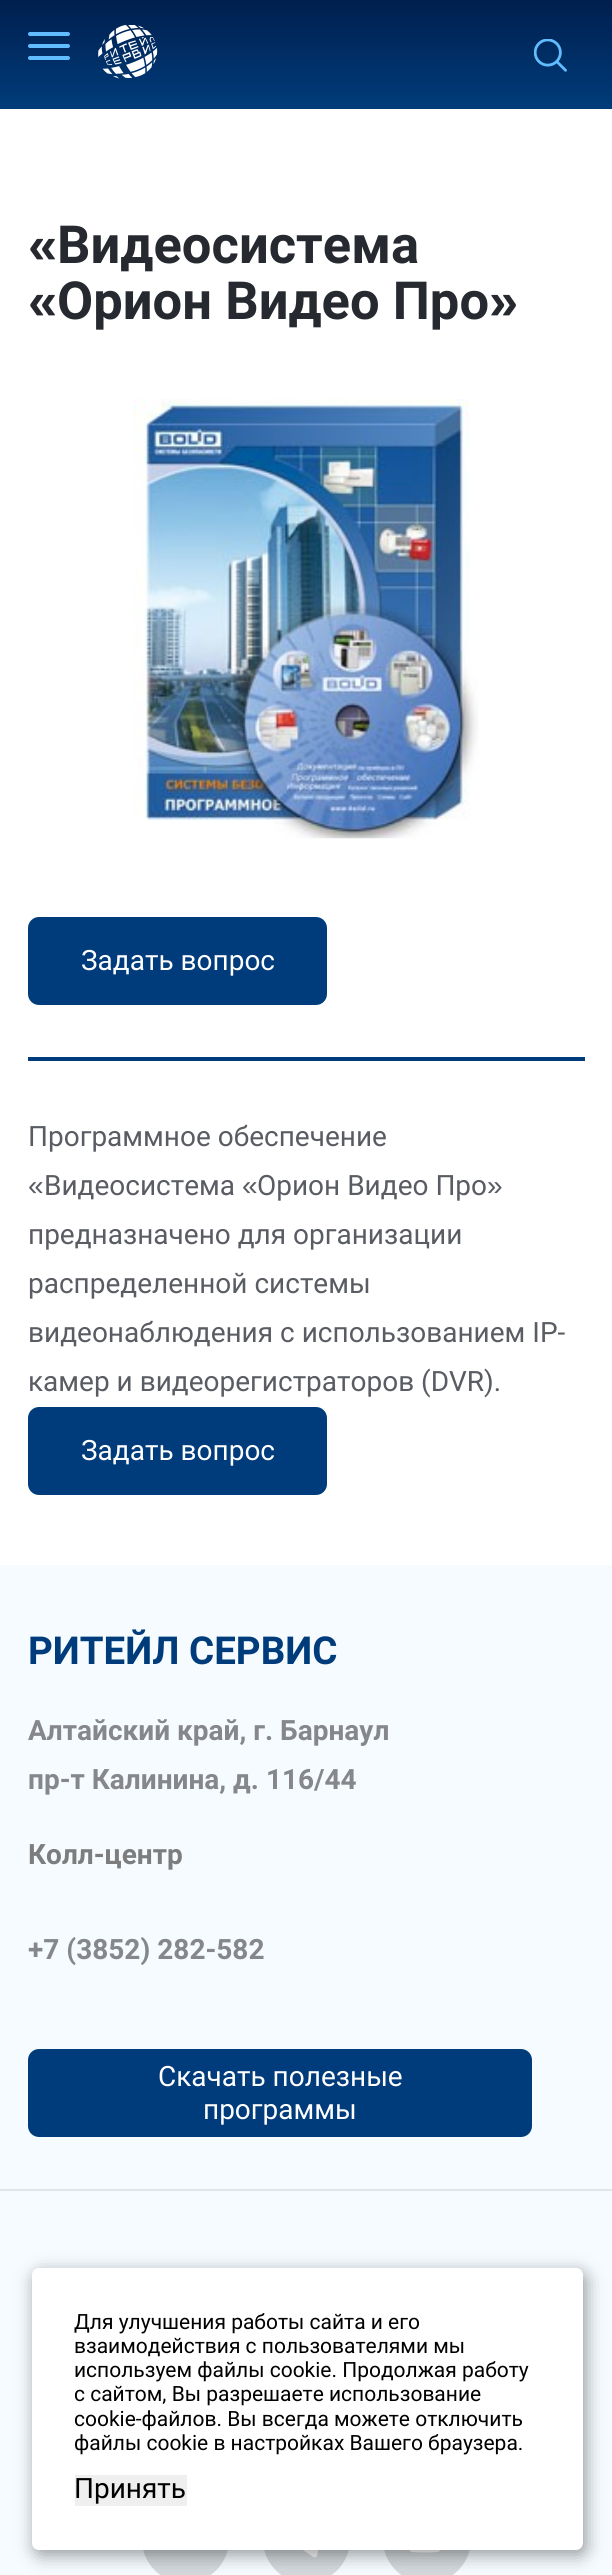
#include <cairo.h>
#include <math.h>
#include <stddef.h>


static void set_color(cairo_t *cr, unsigned color) {
    cairo_set_source_rgb(cr, (color >> 16) / 255.0, (color >> 8 & 255) / 255.0, (color & 255) / 255.0);
}

static void draw_text(cairo_t *cr, double x, double y, const char *s, const char *family, double size, int italic, int bold, unsigned color) {
    cairo_select_font_face(cr, family, italic ? CAIRO_FONT_SLANT_ITALIC : CAIRO_FONT_SLANT_NORMAL,
        bold ? CAIRO_FONT_WEIGHT_BOLD : CAIRO_FONT_WEIGHT_NORMAL);
    cairo_set_font_size(cr, size);
    set_color(cr, color);
    cairo_move_to(cr, x, y);
    cairo_show_text(cr, s);
}

static void fill_rect(cairo_t *cr, double x, double y, double w, double h, unsigned color) {
    set_color(cr, color);
    cairo_rectangle(cr, x, y, w, h);
    cairo_fill(cr);
}

static void rounded_rect(cairo_t *cr, double x, double y, double w, double h, double r) {
    cairo_new_sub_path(cr);
    cairo_arc(cr, x + w - r, y + h - r, r, 0, M_PI / 2);
    cairo_arc(cr, x + r, y + h - r, r, M_PI / 2, M_PI);
    cairo_arc(cr, x + r, y + r, r, M_PI, 1.5 * M_PI);
    cairo_arc(cr, x + w - r, y + r, r, 1.5 * M_PI, 2 * M_PI);
    cairo_close_path(cr);
}

static void draw_shadow(cairo_t *cr, double x, double y, double w, double h, double r, double blur, double alpha) {
    cairo_push_group_with_content(cr, CAIRO_CONTENT_ALPHA);
    cairo_set_operator(cr, CAIRO_OPERATOR_SOURCE);
    for (int i = 15; i >= -15 && fmin(w, h) + blur * i / 3 > 0; i -= 2) {
        double e = blur * i / 6;
        cairo_set_source_rgba(cr, 0, 0, 0, alpha * erfc((i - 1) / 8.5) / 2);
        rounded_rect(cr, x - e, y - e, w + 2 * e, h + 2 * e, fmax(0, fmin(r + e + blur * .6, fmin(w, h) / 2 + e)));
        cairo_fill(cr);
    }
    cairo_pattern_t *soft = cairo_pop_group(cr);
    cairo_mask(cr, soft);
    cairo_pattern_destroy(soft);
}

static void draw_image(cairo_t *cr, const char *path, double x, double y, double w, double h) {
    cairo_surface_t *image = cairo_image_surface_create_from_png(path);
    cairo_save(cr);
    cairo_set_source_surface(cr, image, x, y);
    cairo_rectangle(cr, x, y, w, h);
    cairo_fill(cr);
    cairo_restore(cr);
    cairo_surface_destroy(image);
}

int main(void) {
    cairo_surface_t *surface = cairo_image_surface_create(CAIRO_FORMAT_RGB24, 612, 2575);
    cairo_t *cr = cairo_create(surface);
    cairo_font_options_t *options = cairo_font_options_create();
    cairo_font_options_set_hint_metrics(options, CAIRO_HINT_METRICS_OFF);
    cairo_font_options_set_hint_style(options, CAIRO_HINT_STYLE_NONE);
    cairo_set_font_options(cr, options);
    cairo_set_miter_limit(cr, 4);
    cairo_pattern_t *gradient;
    set_color(cr, 0xFFFFFF);
    cairo_paint(cr);
    gradient = cairo_pattern_create_linear(306, 0, 306, 109);
    cairo_pattern_add_color_stop_rgba(gradient, 0, 0, 0.122, 0.306, 1);
    cairo_pattern_add_color_stop_rgba(gradient, 1, 0, 0.235, 0.482, 1);
    cairo_set_source(cr, gradient);
    cairo_pattern_destroy(gradient);
    cairo_rectangle(cr, 0, 0, 612, 109);
    cairo_fill(cr);
    set_color(cr, 0x62BDFF);
    rounded_rect(cr, 28, 32, 42, 4, 2);
    cairo_fill(cr);
    rounded_rect(cr, 28, 44, 42, 4, 2);
    cairo_fill(cr);
    rounded_rect(cr, 28, 56, 42, 4, 2);
    cairo_fill(cr);
    draw_image(cr, "assets/img1.png", 98, 25, 60, 54);
    draw_image(cr, "assets/img2.png", 534, 39, 33, 33);
    draw_text(cr, 28, 263, "«", "Liberation Sans", 52.5, 0, 1, 0x26292F);
    draw_text(cr, 57, 263, "Видеосистема", "Roboto", 52.5, 0, 1, 0x26292F);
    draw_text(cr, 28, 319, "«", "Liberation Sans", 52.5, 0, 1, 0x26292F);
    draw_text(cr, 57, 319, "Орион Видео Про", "Roboto", 52.5, 0, 1, 0x26292F);
    draw_text(cr, 489, 319, "»", "Liberation Sans", 52.5, 0, 1, 0x26292F);
    fill_rect(cr, 28, 1057, 557, 4, 0x003C7B);
    draw_image(cr, "assets/img3.png", 133, 399, 346, 440);
    rounded_rect(cr, 28, 917, 299, 88, 11);
    cairo_fill(cr);
    draw_text(cr, 81, 970, "Задать вопрос", "Roboto", 28, 0, 0, 0xFFFFFF);
    draw_text(cr, 28, 1146, "Программное обеспечение", "Roboto", 28, 0, 0, 0x595C62);
    draw_text(cr, 28, 1195, "«", "Liberation Sans", 28, 0, 0, 0x595C62);
    draw_text(cr, 44, 1195, "Видеосистема", "Roboto", 28, 0, 0, 0x595C62);
    draw_text(cr, 242, 1195, "«", "Liberation Sans", 28, 0, 0, 0x595C62);
    draw_text(cr, 257, 1195, "Орион Видео Про", "Roboto", 28, 0, 0, 0x595C62);
    draw_text(cr, 487, 1195, "»", "Liberation Sans", 28, 0, 0, 0x595C62);
    draw_text(cr, 28, 1244, "предназначено для организации", "Roboto", 28, 0, 0, 0x595C62);
    draw_text(cr, 28, 1293, "распределенной системы", "Roboto", 28, 0, 0, 0x595C62);
    draw_text(cr, 28, 1342, "видеонаблюдения с использованием IP-", "Roboto", 28, 0, 0, 0x595C62);
    draw_text(cr, 28, 1391, "камер и видеорегистраторов (DVR).", "Roboto", 28, 0, 0, 0x595C62);
    set_color(cr, 0x003C7B);
    rounded_rect(cr, 28, 1407, 299, 88, 11);
    cairo_fill(cr);
    draw_text(cr, 81, 1460, "Задать вопрос", "Roboto", 28, 0, 0, 0xFFFFFF);
    fill_rect(cr, 0, 1565, 612, 624, 0xF5FBFF);
    fill_rect(cr, 0, 2189, 612, 2, 0xE1E5E7);
    draw_text(cr, 28, 1664, "РИТЕЙЛ СЕРВИС", "Roboto", 38.5, 0, 1, 0x003C7B);
    draw_text(cr, 28, 1740, "Алтайский край, г. Барнаул", "Roboto", 28, 0, 1, 0x85878B);
    draw_text(cr, 28, 1789, "пр-т Калинина, д. 116/44", "Roboto", 28, 0, 1, 0x85878B);
    draw_text(cr, 28, 1864, "Колл-центр", "Roboto", 28, 0, 1, 0x7D7D7D);
    draw_text(cr, 28, 1959, "+7 (3852) 282-582", "Roboto", 28, 0, 1, 0x85878B);
    set_color(cr, 0x003C7B);
    rounded_rect(cr, 28, 2049, 504, 88, 11);
    cairo_fill(cr);
    draw_text(cr, 158, 2086, "Скачать полезные", "Roboto", 28, 0, 0, 0xFFFFFF);
    draw_text(cr, 203, 2119, "программы", "Roboto", 28, 0, 0, 0xFFFFFF);
    fill_rect(cr, 0, 2191, 612, 384, 0xF5FBFF);
    set_color(cr, 0xD3D8DC);
    cairo_new_path(cr);
    cairo_arc(cr, 185.5, 2539.5, 43.5, 0, 2 * M_PI);
    cairo_fill(cr);
    cairo_arc(cr, 306.5, 2539.5, 43.5, 0, 2 * M_PI);
    cairo_fill(cr);
    draw_image(cr, "assets/img4.png", 303, 2550, 16, 7);
    rounded_rect(cr, 383, 2496, 88, 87, 43.5);
    cairo_fill(cr);
    draw_image(cr, "assets/img5.png", 410, 2550, 31, 3);
    set_color(cr, 0x000000);
    draw_shadow(cr, 35, 2273, 551, 282, 7, 9, 0.4);
    set_color(cr, 0xFFFFFF);
    rounded_rect(cr, 32, 2268, 551, 282, 7);
    cairo_fill(cr);
    draw_text(cr, 74, 2329, "Для улучшения работы сайта и его", "Roboto", 21, 0, 0, 0x000000);
    draw_text(cr, 74, 2353, "взаимодействия с пользователями мы", "Roboto", 21, 0, 0, 0x000000);
    draw_text(cr, 74, 2377, "используем файлы cookie. Продолжая работу", "Roboto", 21, 0, 0, 0x000000);
    draw_text(cr, 74, 2401, "с сайтом, Вы разрешаете использование", "Roboto", 21, 0, 0, 0x000000);
    draw_text(cr, 74, 2426, "cookie-файлов. Вы всегда можете отключить", "Roboto", 21, 0, 0, 0x000000);
    draw_text(cr, 74, 2450, "файлы cookie в настройках Вашего браузера.", "Roboto", 21, 0, 0, 0x000000);
    fill_rect(cr, 75, 2475, 112, 31, 0xEFEFEF);
    draw_text(cr, 74, 2498, "Принять", "Roboto", 28, 0, 0, 0x000000);
    cairo_surface_write_to_png(surface, "output.png");
    cairo_font_options_destroy(options);
    cairo_destroy(cr);
    cairo_surface_destroy(surface);
    return 0;
}
